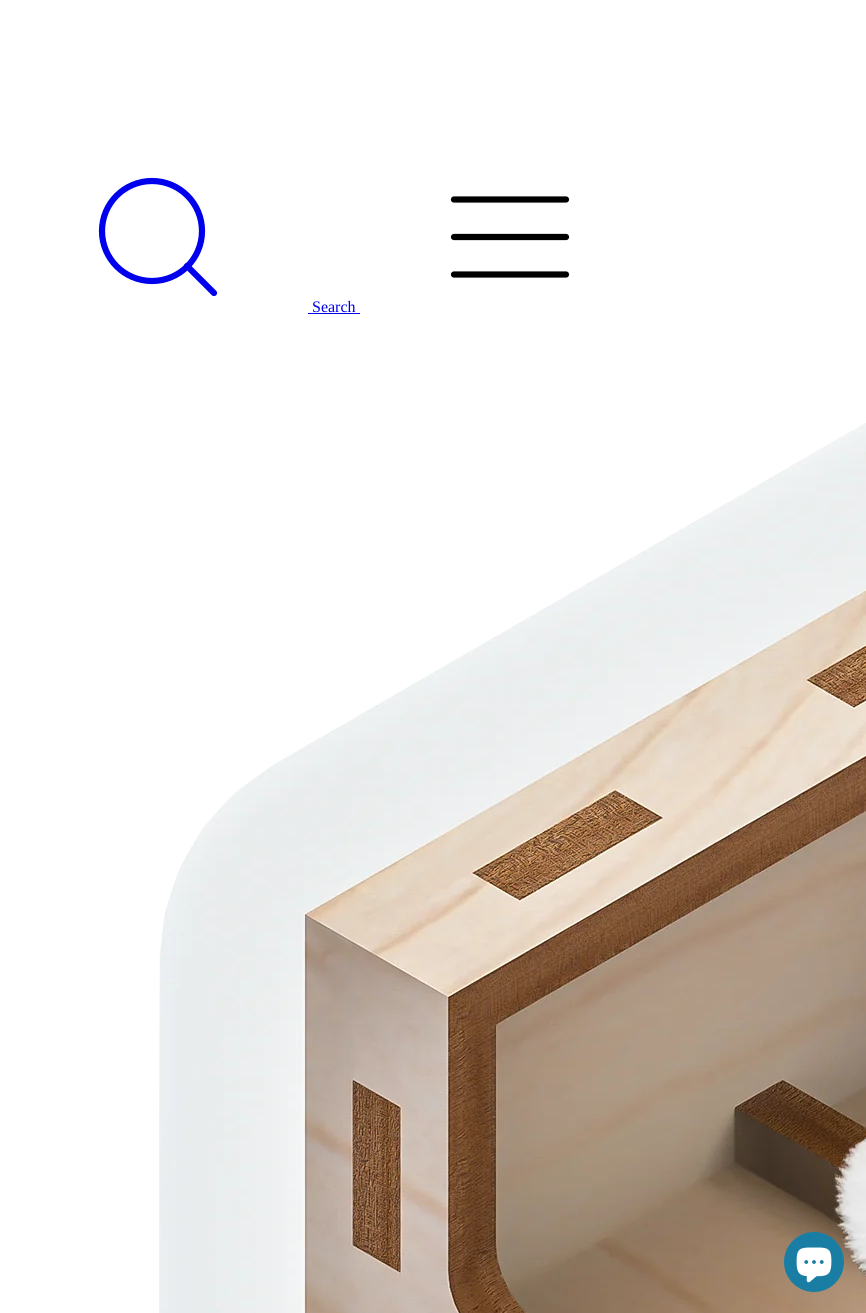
#include <cairo.h>
#include <math.h>
#include <stddef.h>


static void set_color(cairo_t *cr, unsigned color) {
    cairo_set_source_rgb(cr, (color >> 16) / 255.0, (color >> 8 & 255) / 255.0, (color & 255) / 255.0);
}

static void draw_text(cairo_t *cr, double x, double y, const char *s, const char *family, double size, int italic, int bold, unsigned color) {
    cairo_select_font_face(cr, family, italic ? CAIRO_FONT_SLANT_ITALIC : CAIRO_FONT_SLANT_NORMAL,
        bold ? CAIRO_FONT_WEIGHT_BOLD : CAIRO_FONT_WEIGHT_NORMAL);
    cairo_set_font_size(cr, size);
    set_color(cr, color);
    cairo_move_to(cr, x, y);
    cairo_show_text(cr, s);
}

static void fill_rect(cairo_t *cr, double x, double y, double w, double h, unsigned color) {
    set_color(cr, color);
    cairo_rectangle(cr, x, y, w, h);
    cairo_fill(cr);
}

static void draw_image(cairo_t *cr, const char *path, double x, double y, double w, double h) {
    cairo_surface_t *image = cairo_image_surface_create_from_png(path);
    cairo_save(cr);
    cairo_set_source_surface(cr, image, x, y);
    cairo_rectangle(cr, x, y, w, h);
    cairo_fill(cr);
    cairo_restore(cr);
    cairo_surface_destroy(image);
}

int main(void) {
    cairo_surface_t *surface = cairo_image_surface_create(CAIRO_FORMAT_RGB24, 866, 1313);
    cairo_t *cr = cairo_create(surface);
    cairo_font_options_t *options = cairo_font_options_create();
    cairo_font_options_set_hint_metrics(options, CAIRO_HINT_METRICS_OFF);
    cairo_font_options_set_hint_style(options, CAIRO_HINT_STYLE_NONE);
    cairo_set_font_options(cr, options);
    cairo_set_miter_limit(cr, 4);
    set_color(cr, 0xFFFFFF);
    cairo_paint(cr);
    cairo_new_path(cr);
    cairo_move_to(cr, 454, 199.5);
    cairo_line_to(cr, 566, 199.5);
    set_color(cr, 0x000000);
    cairo_set_line_width(cr, 6.2);
    cairo_set_line_cap(cr, CAIRO_LINE_CAP_ROUND);
    cairo_set_line_join(cr, CAIRO_LINE_JOIN_ROUND);
    cairo_stroke(cr);
    cairo_new_path(cr);
    cairo_move_to(cr, 454, 237);
    cairo_line_to(cr, 566, 237);
    cairo_stroke(cr);
    cairo_new_path(cr);
    cairo_move_to(cr, 454, 274.5);
    cairo_line_to(cr, 566, 274.5);
    cairo_stroke(cr);
    draw_text(cr, 312, 312, "Search", "Liberation Serif", 16, 0, 0, 0x0000EE);
    fill_rect(cr, 308, 313, 52, 1, 0x0000EE);
    cairo_new_path(cr);
    cairo_arc(cr, 152, 231, 50, 0, 2 * M_PI);
    cairo_set_line_cap(cr, CAIRO_LINE_CAP_BUTT);
    cairo_set_line_join(cr, CAIRO_LINE_JOIN_MITER);
    cairo_stroke(cr);
    cairo_new_path(cr);
    cairo_move_to(cr, 214, 293);
    cairo_line_to(cr, 187, 266);
    cairo_set_line_cap(cr, CAIRO_LINE_CAP_ROUND);
    cairo_set_line_join(cr, CAIRO_LINE_JOIN_ROUND);
    cairo_stroke(cr);
    draw_image(cr, "assets/img1.png", 159, 423, 707, 890);
    set_color(cr, 0x1A7EA4);
    cairo_arc(cr, 814, 1262, 30, 0, 2 * M_PI);
    cairo_fill(cr);
    draw_image(cr, "assets/img2.png", 796, 1247, 36, 36);
    cairo_surface_write_to_png(surface, "output.png");
    cairo_font_options_destroy(options);
    cairo_destroy(cr);
    cairo_surface_destroy(surface);
    return 0;
}
